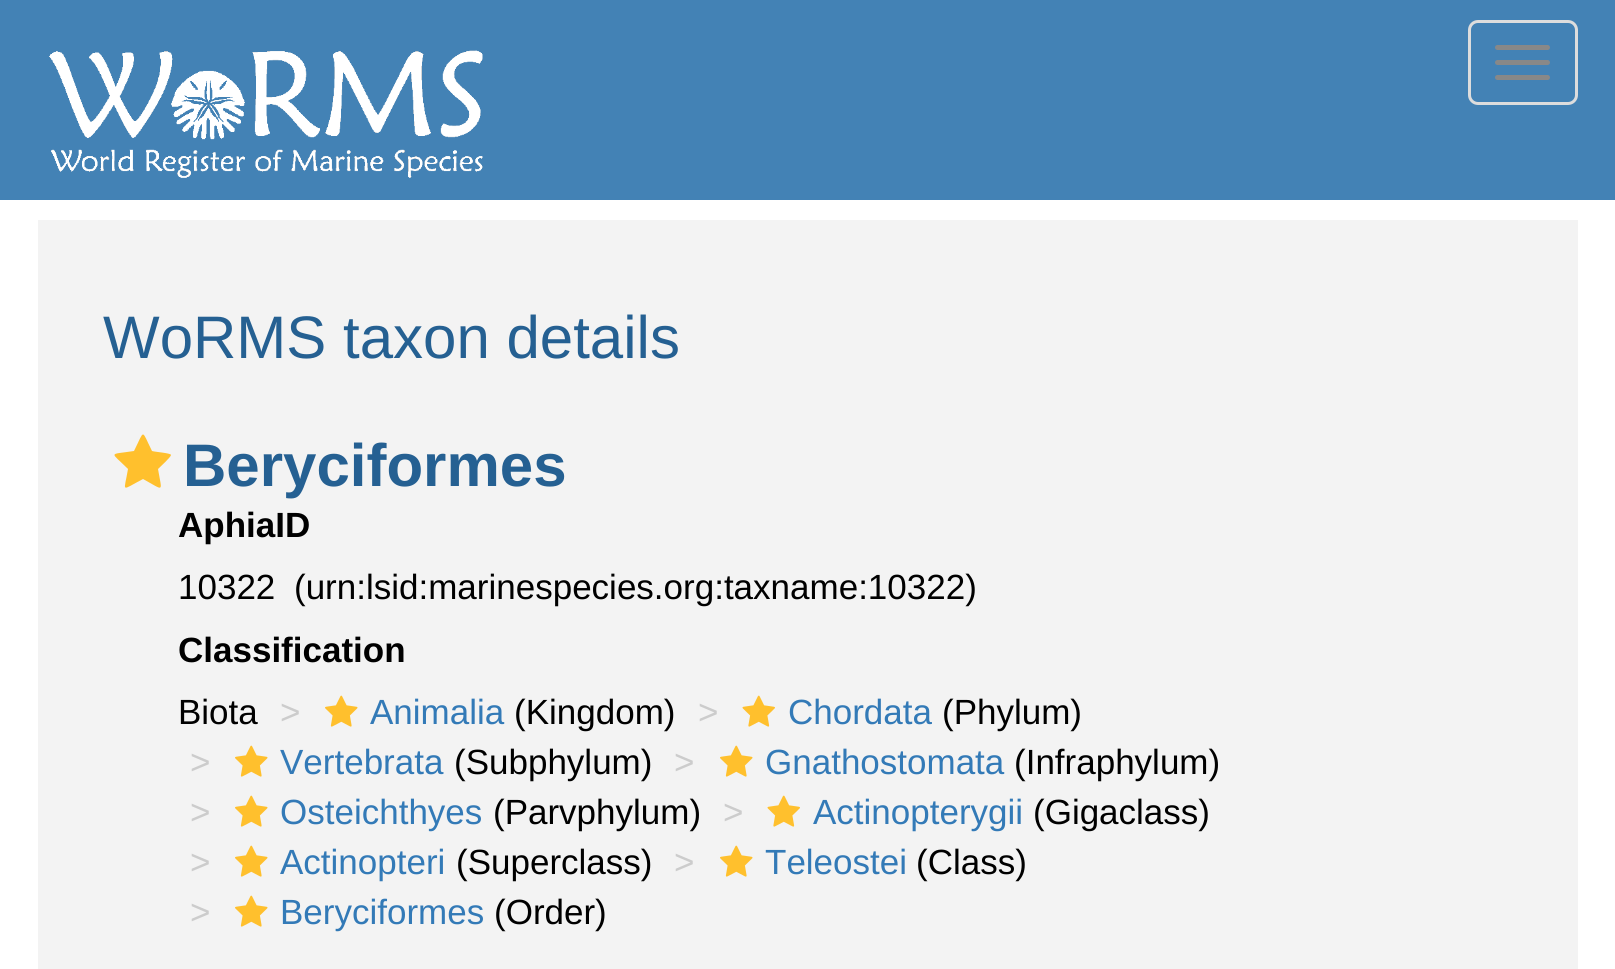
#include <cairo.h>
#include <math.h>
#include <stddef.h>


static void set_color(cairo_t *cr, unsigned color) {
    cairo_set_source_rgb(cr, (color >> 16) / 255.0, (color >> 8 & 255) / 255.0, (color & 255) / 255.0);
}

static void draw_text(cairo_t *cr, double x, double y, const char *s, const char *family, double size, int italic, int bold, unsigned color) {
    cairo_select_font_face(cr, family, italic ? CAIRO_FONT_SLANT_ITALIC : CAIRO_FONT_SLANT_NORMAL,
        bold ? CAIRO_FONT_WEIGHT_BOLD : CAIRO_FONT_WEIGHT_NORMAL);
    cairo_set_font_size(cr, size);
    set_color(cr, color);
    cairo_move_to(cr, x, y);
    cairo_show_text(cr, s);
}

static void fill_rect(cairo_t *cr, double x, double y, double w, double h, unsigned color) {
    set_color(cr, color);
    cairo_rectangle(cr, x, y, w, h);
    cairo_fill(cr);
}

static void rounded_rect(cairo_t *cr, double x, double y, double w, double h, double r) {
    cairo_new_sub_path(cr);
    cairo_arc(cr, x + w - r, y + h - r, r, 0, M_PI / 2);
    cairo_arc(cr, x + r, y + h - r, r, M_PI / 2, M_PI);
    cairo_arc(cr, x + r, y + r, r, M_PI, 1.5 * M_PI);
    cairo_arc(cr, x + w - r, y + r, r, 1.5 * M_PI, 2 * M_PI);
    cairo_close_path(cr);
}

static void draw_image(cairo_t *cr, const char *path, double x, double y, double w, double h) {
    cairo_surface_t *image = cairo_image_surface_create_from_png(path);
    cairo_save(cr);
    cairo_set_source_surface(cr, image, x, y);
    cairo_rectangle(cr, x, y, w, h);
    cairo_fill(cr);
    cairo_restore(cr);
    cairo_surface_destroy(image);
}

int main(void) {
    cairo_surface_t *surface = cairo_image_surface_create(CAIRO_FORMAT_RGB24, 1615, 969);
    cairo_t *cr = cairo_create(surface);
    cairo_font_options_t *options = cairo_font_options_create();
    cairo_font_options_set_hint_metrics(options, CAIRO_HINT_METRICS_OFF);
    cairo_font_options_set_hint_style(options, CAIRO_HINT_STYLE_NONE);
    cairo_set_font_options(cr, options);
    cairo_set_miter_limit(cr, 4);
    set_color(cr, 0xFFFFFF);
    cairo_paint(cr);
    fill_rect(cr, 0, 0, 1615, 200, 0x4382B5);
    draw_image(cr, "assets/img1.png", 49, 50, 434, 128);
    rounded_rect(cr, 1469.5, 21.5, 107, 82, 8.5);
    set_color(cr, 0xDDDDDD);
    cairo_set_line_width(cr, 3);
    cairo_stroke(cr);
    set_color(cr, 0x888888);
    rounded_rect(cr, 1495, 45, 55, 5, 2.5);
    cairo_fill(cr);
    rounded_rect(cr, 1495, 60, 55, 5, 2.5);
    cairo_fill(cr);
    rounded_rect(cr, 1495, 75, 55, 5, 2.5);
    cairo_fill(cr);
    fill_rect(cr, 38, 220, 1540, 749, 0xF3F3F3);
    draw_text(cr, 103, 358, "WoRMS taxon details", "Liberation Sans", 60, 0, 0, 0x256092);
    set_color(cr, 0xFFC02D);
    cairo_new_path(cr);
    cairo_move_to(cr, 171, 455);
    cairo_curve_to(cr, 171, 457, 160, 467, 158, 469);
    cairo_curve_to(cr, 162, 493, 165, 491, 143, 479);
    cairo_curve_to(cr, 120, 491, 124, 493, 128, 469);
    cairo_curve_to(cr, 110, 451, 108, 455, 134, 451);
    cairo_curve_to(cr, 145, 429, 141, 429, 152, 451);
    cairo_curve_to(cr, 155, 452, 171, 453, 171, 455);
    cairo_close_path(cr);
    cairo_fill(cr);
    draw_text(cr, 183, 486, "Beryciformes", "Liberation Sans", 60, 0, 1, 0x256092);
    draw_text(cr, 178, 537, "AphiaID", "Liberation Sans", 35, 0, 1, 0x000000);
    draw_text(cr, 178, 599, "10322", "Liberation Sans", 35, 0, 0, 0x000000);
    draw_text(cr, 294, 599, "(urn:lsid:marinespecies.org:taxname:10322)", "Liberation Sans", 35, 0, 0, 0x000000);
    draw_text(cr, 178, 662, "Classification", "Liberation Sans", 35, 0, 1, 0x000000);
    draw_text(cr, 178, 724, "Biota", "Liberation Sans", 35, 0, 0, 0x000000);
    draw_text(cr, 280, 724, ">", "Liberation Sans", 35, 0, 0, 0xCCCCCC);
    draw_image(cr, "assets/img2.png", 325, 695, 33, 32);
    draw_text(cr, 370, 724, "Animalia", "Liberation Sans", 35, 0, 0, 0x337AB7);
    draw_text(cr, 514, 724, "(Kingdom)", "Liberation Sans", 35, 0, 0, 0x000000);
    draw_text(cr, 698, 724, ">", "Liberation Sans", 35, 0, 0, 0xCCCCCC);
    draw_image(cr, "assets/img3.png", 742, 695, 33, 32);
    draw_text(cr, 788, 724, "Chordata", "Liberation Sans", 35, 0, 0, 0x337AB7);
    draw_text(cr, 942, 724, "(Phylum)", "Liberation Sans", 35, 0, 0, 0x000000);
    draw_text(cr, 190, 774, ">", "Liberation Sans", 35, 0, 0, 0xCCCCCC);
    draw_image(cr, "assets/img2.png", 235, 745, 33, 32);
    draw_text(cr, 280, 774, "Vertebrata", "Liberation Sans", 35, 0, 0, 0x337AB7);
    draw_text(cr, 454, 774, "(Subphylum)", "Liberation Sans", 35, 0, 0, 0x000000);
    draw_text(cr, 674, 774, ">", "Liberation Sans", 35, 0, 0, 0xCCCCCC);
    draw_image(cr, "assets/img2.png", 720, 745, 33, 32);
    draw_text(cr, 765, 774, "Gnathostomata", "Liberation Sans", 35, 0, 0, 0x337AB7);
    draw_text(cr, 1014, 774, "(Infraphylum)", "Liberation Sans", 35, 0, 0, 0x000000);
    draw_text(cr, 190, 824, ">", "Liberation Sans", 35, 0, 0, 0xCCCCCC);
    draw_image(cr, "assets/img2.png", 235, 795, 33, 32);
    draw_text(cr, 280, 824, "Osteichthyes", "Liberation Sans", 35, 0, 0, 0x337AB7);
    draw_text(cr, 493, 824, "(Parvphylum)", "Liberation Sans", 35, 0, 0, 0x000000);
    draw_text(cr, 723, 824, ">", "Liberation Sans", 35, 0, 0, 0xCCCCCC);
    draw_image(cr, "assets/img3.png", 767, 795, 33, 32);
    draw_text(cr, 813, 824, "Actinopterygii", "Liberation Sans", 35, 0, 0, 0x337AB7);
    draw_text(cr, 1033, 824, "(Gigaclass)", "Liberation Sans", 35, 0, 0, 0x000000);
    draw_text(cr, 190, 874, ">", "Liberation Sans", 35, 0, 0, 0xCCCCCC);
    draw_image(cr, "assets/img2.png", 235, 845, 33, 32);
    draw_text(cr, 280, 874, "Actinopteri", "Liberation Sans", 35, 0, 0, 0x337AB7);
    draw_text(cr, 456, 874, "(Superclass)", "Liberation Sans", 35, 0, 0, 0x000000);
    draw_text(cr, 674, 874, ">", "Liberation Sans", 35, 0, 0, 0xCCCCCC);
    draw_image(cr, "assets/img2.png", 720, 845, 33, 32);
    draw_text(cr, 765, 874, "Teleostei", "Liberation Sans", 35, 0, 0, 0x337AB7);
    draw_text(cr, 916, 874, "(Class)", "Liberation Sans", 35, 0, 0, 0x000000);
    draw_text(cr, 190, 924, ">", "Liberation Sans", 35, 0, 0, 0xCCCCCC);
    draw_image(cr, "assets/img2.png", 235, 895, 33, 32);
    draw_text(cr, 280, 924, "Beryciformes", "Liberation Sans", 35, 0, 0, 0x337AB7);
    draw_text(cr, 494, 924, "(Order)", "Liberation Sans", 35, 0, 0, 0x000000);
    cairo_surface_write_to_png(surface, "output.png");
    cairo_font_options_destroy(options);
    cairo_destroy(cr);
    cairo_surface_destroy(surface);
    return 0;
}
